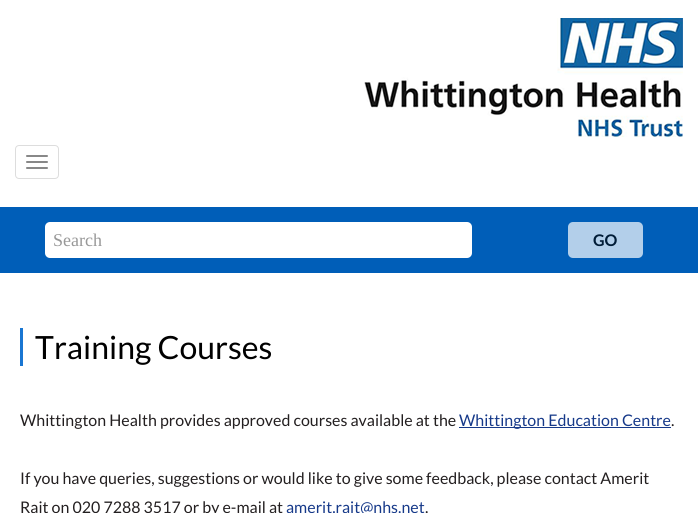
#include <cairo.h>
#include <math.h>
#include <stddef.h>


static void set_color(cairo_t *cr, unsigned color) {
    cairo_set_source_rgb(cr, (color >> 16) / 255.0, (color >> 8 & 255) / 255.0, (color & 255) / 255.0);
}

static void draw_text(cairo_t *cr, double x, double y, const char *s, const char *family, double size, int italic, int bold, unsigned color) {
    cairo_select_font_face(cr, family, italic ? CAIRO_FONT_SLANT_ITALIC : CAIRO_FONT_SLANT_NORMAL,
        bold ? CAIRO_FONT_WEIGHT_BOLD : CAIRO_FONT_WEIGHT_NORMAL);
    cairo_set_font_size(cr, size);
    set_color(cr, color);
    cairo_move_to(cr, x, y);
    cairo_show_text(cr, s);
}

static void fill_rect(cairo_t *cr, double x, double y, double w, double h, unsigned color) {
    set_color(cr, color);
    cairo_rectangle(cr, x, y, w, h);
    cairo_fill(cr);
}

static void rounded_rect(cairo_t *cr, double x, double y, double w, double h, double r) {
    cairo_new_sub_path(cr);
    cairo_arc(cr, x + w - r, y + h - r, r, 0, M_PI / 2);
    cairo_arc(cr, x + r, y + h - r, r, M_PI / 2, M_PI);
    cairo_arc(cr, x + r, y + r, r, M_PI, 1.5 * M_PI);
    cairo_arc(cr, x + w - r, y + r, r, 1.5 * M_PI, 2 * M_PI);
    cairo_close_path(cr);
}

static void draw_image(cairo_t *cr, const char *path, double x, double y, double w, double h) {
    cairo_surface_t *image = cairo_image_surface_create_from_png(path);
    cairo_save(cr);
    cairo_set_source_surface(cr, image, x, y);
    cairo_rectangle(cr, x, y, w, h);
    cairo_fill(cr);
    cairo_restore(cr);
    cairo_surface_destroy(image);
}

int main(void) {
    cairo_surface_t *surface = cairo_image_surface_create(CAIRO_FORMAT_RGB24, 698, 513);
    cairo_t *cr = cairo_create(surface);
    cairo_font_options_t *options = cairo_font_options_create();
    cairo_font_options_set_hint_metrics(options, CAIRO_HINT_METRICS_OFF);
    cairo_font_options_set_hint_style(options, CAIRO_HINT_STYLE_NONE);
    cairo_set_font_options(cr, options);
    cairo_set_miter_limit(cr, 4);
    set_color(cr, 0xFFFFFF);
    cairo_paint(cr);
    draw_image(cr, "assets/img1.png", 364, 18, 319, 119);
    rounded_rect(cr, 15.5, 145.5, 43, 33, 3.5);
    set_color(cr, 0xDDDDDD);
    cairo_set_line_width(cr, 1);
    cairo_stroke(cr);
    set_color(cr, 0x888888);
    rounded_rect(cr, 26, 155, 22, 2, 1);
    cairo_fill(cr);
    rounded_rect(cr, 26, 161, 22, 2, 1);
    cairo_fill(cr);
    rounded_rect(cr, 26, 167, 22, 2, 1);
    cairo_fill(cr);
    fill_rect(cr, 0, 207, 698, 66, 0x005EB8);
    set_color(cr, 0xFFFFFF);
    rounded_rect(cr, 45, 222, 427, 36, 5);
    cairo_fill(cr);
    draw_text(cr, 53, 246, "Search", "Liberation Serif", 18, 0, 0, 0x989898);
    set_color(cr, 0xB3CFEA);
    rounded_rect(cr, 568, 222, 75, 36, 5);
    cairo_fill(cr);
    draw_text(cr, 593, 246, "GO", "Lato", 16, 0, 1, 0x001C37);
    fill_rect(cr, 20, 328, 3, 38, 0x1976D2);
    draw_text(cr, 35, 359, "Training Courses", "Lato", 32, 0, 0, 0x000000);
    draw_text(cr, 20, 426, "Whittington Health provides approved courses available at the", "Lato", 16, 0, 0, 0x231F20);
    fill_rect(cr, 459, 427, 212, 1, 0x163989);
    draw_text(cr, 459, 426, "Whittington Education Centre", "Lato", 16, 0, 0, 0x163989);
    draw_text(cr, 671, 426, ".", "Lato", 16, 0, 0, 0x231F20);
    draw_text(cr, 20, 484, "If you have queries, suggestions or would like to give some feedback, please contact Amerit", "Lato", 16, 0, 0, 0x231F20);
    draw_text(cr, 20, 513, "Rait on 020 7288 3517 or by e-mail at", "Lato", 16, 0, 0, 0x231F20);
    draw_text(cr, 286, 513, "amerit.rait@nhs.net", "Lato", 16, 0, 0, 0x163989);
    draw_text(cr, 425, 513, ".", "Lato", 16, 0, 0, 0x231F20);
    cairo_surface_write_to_png(surface, "output.png");
    cairo_font_options_destroy(options);
    cairo_destroy(cr);
    cairo_surface_destroy(surface);
    return 0;
}
